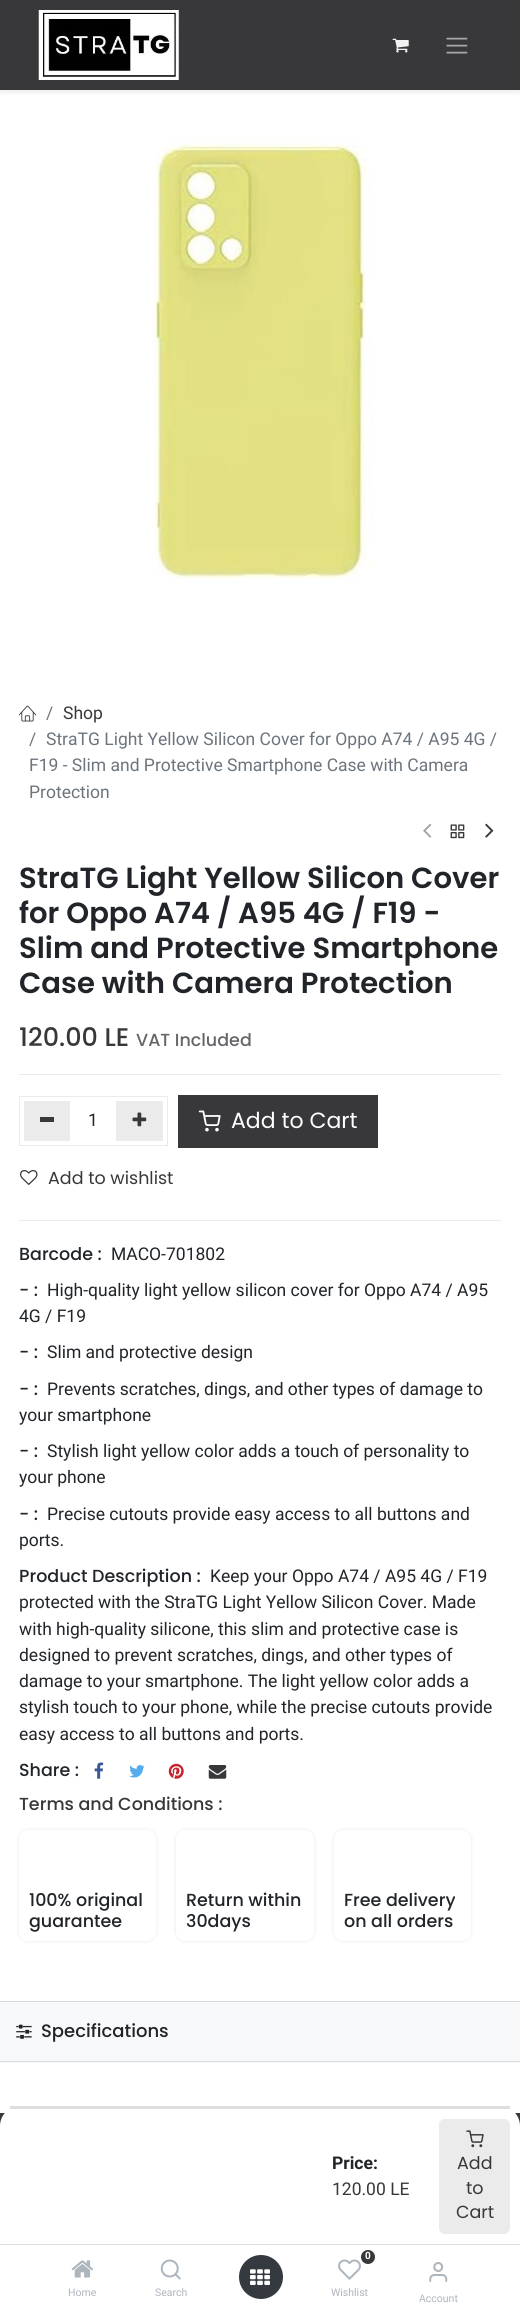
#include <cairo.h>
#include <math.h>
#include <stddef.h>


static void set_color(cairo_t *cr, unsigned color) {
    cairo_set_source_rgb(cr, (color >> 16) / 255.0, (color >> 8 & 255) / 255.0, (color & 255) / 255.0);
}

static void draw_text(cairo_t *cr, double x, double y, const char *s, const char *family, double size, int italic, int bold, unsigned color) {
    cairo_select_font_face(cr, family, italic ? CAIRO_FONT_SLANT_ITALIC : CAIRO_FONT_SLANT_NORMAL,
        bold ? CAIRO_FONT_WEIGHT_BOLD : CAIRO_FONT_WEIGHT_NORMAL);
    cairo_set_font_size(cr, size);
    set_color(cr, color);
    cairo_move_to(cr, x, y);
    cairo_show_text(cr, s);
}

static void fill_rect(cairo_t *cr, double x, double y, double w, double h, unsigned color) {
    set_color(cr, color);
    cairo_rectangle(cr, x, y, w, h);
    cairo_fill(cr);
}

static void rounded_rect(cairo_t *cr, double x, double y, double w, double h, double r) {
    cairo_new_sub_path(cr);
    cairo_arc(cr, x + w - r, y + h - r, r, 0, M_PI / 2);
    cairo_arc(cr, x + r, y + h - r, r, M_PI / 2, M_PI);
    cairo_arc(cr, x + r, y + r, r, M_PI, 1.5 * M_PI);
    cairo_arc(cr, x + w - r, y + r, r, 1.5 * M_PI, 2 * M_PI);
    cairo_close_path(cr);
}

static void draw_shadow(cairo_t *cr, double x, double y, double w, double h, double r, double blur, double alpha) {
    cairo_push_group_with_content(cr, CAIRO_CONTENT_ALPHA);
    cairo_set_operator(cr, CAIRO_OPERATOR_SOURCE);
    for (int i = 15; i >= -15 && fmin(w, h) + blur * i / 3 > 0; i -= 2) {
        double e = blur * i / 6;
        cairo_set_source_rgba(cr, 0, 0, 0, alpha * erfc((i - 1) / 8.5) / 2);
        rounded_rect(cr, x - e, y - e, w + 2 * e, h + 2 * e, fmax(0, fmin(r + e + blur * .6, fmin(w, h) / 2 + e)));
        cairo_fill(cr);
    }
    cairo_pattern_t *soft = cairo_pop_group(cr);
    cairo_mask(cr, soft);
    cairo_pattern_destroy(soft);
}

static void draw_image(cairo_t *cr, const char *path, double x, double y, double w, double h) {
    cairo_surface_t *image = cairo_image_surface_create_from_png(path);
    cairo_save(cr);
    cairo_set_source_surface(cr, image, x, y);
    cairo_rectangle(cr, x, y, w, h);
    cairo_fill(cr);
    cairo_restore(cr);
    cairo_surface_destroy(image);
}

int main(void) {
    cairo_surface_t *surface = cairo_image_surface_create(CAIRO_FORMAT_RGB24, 520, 2313);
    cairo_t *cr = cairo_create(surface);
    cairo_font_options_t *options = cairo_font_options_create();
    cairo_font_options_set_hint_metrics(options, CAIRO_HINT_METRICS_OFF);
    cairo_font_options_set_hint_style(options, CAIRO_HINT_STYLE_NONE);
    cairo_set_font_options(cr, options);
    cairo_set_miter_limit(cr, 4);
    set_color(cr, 0xFFFFFF);
    cairo_paint(cr);
    set_color(cr, 0x000000);
    draw_shadow(cr, 0, 3, 520, 90, 0, 2.5, 0.07);
    fill_rect(cr, 0, 0, 520, 90, 0x38383B);
    draw_image(cr, "assets/img1.png", 38, 10, 141, 70);
    draw_image(cr, "assets/img2.png", 392, 38, 17, 15);
    draw_image(cr, "assets/img3.png", 446, 37, 22, 17);
    draw_image(cr, "assets/img4.png", 151, 136, 223, 447);
    draw_image(cr, "assets/img5.png", 18, 705, 19, 17);
    draw_text(cr, 46, 719, "/", "Roboto", 17.5, 0, 0, 0x6C757D);
    draw_text(cr, 63, 719, "Shop", "Roboto", 17.5, 0, 0, 0x38383B);
    draw_text(cr, 29, 745, "/", "Roboto", 17.5, 0, 0, 0x6C757D);
    draw_text(cr, 46, 745, "StraTG Light Yellow Silicon Cover for Oppo A74 / A95 4G /", "Roboto", 17.5, 0, 0, 0x6C757D);
    draw_text(cr, 29, 771, "F19 - Slim and Protective Smartphone Case with Camera", "Roboto", 17.5, 0, 0, 0x6C757D);
    draw_text(cr, 29, 798, "Protection", "Roboto", 17.5, 0, 0, 0x6C757D);
    draw_image(cr, "assets/img6.png", 423, 823, 9, 15);
    draw_image(cr, "assets/img7.png", 450, 824, 15, 15);
    draw_image(cr, "assets/img8.png", 485, 823, 9, 15);
    draw_text(cr, 19, 888, "StraTG Light Yellow Silicon Cover", "Poppins SemiBold", 29.1, 0, 0, 0x212529);
    draw_text(cr, 19, 923, "for Oppo A74 / A95 4G / F19 -", "Poppins SemiBold", 29.1, 0, 0, 0x212529);
    draw_text(cr, 19, 958, "Slim and Protective Smartphone", "Poppins SemiBold", 29.1, 0, 0, 0x212529);
    draw_text(cr, 19, 993, "Case with Camera Protection", "Poppins SemiBold", 29.1, 0, 0, 0x212529);
    draw_text(cr, 19, 1046, "120.00 LE", "Poppins Medium", 25.5, 0, 0, 0x38383B);
    draw_text(cr, 136, 1046, "VAT Included", "Poppins Medium", 17.5, 0, 0, 0x646669);
    fill_rect(cr, 19, 1074, 482, 1, 0xE9EAEA);
    cairo_rectangle(cr, 19.5, 1096.5, 148, 49);
    set_color(cr, 0xE9ECEF);
    cairo_set_line_width(cr, 1);
    cairo_stroke(cr);
    fill_rect(cr, 24, 1101, 46, 40, 0xEBEBEB);
    fill_rect(cr, 40, 1117, 14, 5, 0x38383B);
    draw_text(cr, 88, 1126, "1", "Roboto", 17.5, 0, 0, 0x212529);
    fill_rect(cr, 116, 1101, 47, 40, 0xEBEBEB);
    draw_image(cr, "assets/img9.png", 132, 1112, 15, 15);
    fill_rect(cr, 178, 1095, 200, 53, 0x38383B);
    draw_image(cr, "assets/img10.png", 198, 1110, 23, 22);
    draw_text(cr, 231, 1128, "Add to Cart", "Poppins", 22, 0, 0, 0xFFFFFF);
    draw_image(cr, "assets/img11.png", 20, 1170, 18, 15);
    draw_text(cr, 48, 1184, "Add to wishlist", "Poppins", 17.5, 0, 0, 0x38383B);
    fill_rect(cr, 19, 1220, 482, 1, 0xE9EAEA);
    draw_text(cr, 19, 1260, "Barcode :", "Poppins Medium", 17.5, 0, 0, 0x212529);
    draw_text(cr, 111, 1260, "MACO-701802", "Roboto", 17.5, 0, 0, 0x212529);
    draw_text(cr, 19, 1296, "- :", "Poppins Medium", 17.5, 0, 0, 0x212529);
    draw_text(cr, 47, 1296, "High-quality light yellow silicon cover for Oppo A74 / A95", "Roboto", 17.5, 0, 0, 0x212529);
    draw_text(cr, 19, 1322, "4G / F19", "Roboto", 17.5, 0, 0, 0x212529);
    draw_text(cr, 19, 1358, "- :", "Poppins Medium", 17.5, 0, 0, 0x212529);
    draw_text(cr, 47, 1358, "Slim and protective design", "Roboto", 17.5, 0, 0, 0x212529);
    draw_text(cr, 19, 1395, "- :", "Poppins Medium", 17.5, 0, 0, 0x212529);
    draw_text(cr, 47, 1395, "Prevents scratches, dings, and other types of damage to", "Roboto", 17.5, 0, 0, 0x212529);
    draw_text(cr, 19, 1421, "your smartphone", "Roboto", 17.5, 0, 0, 0x212529);
    draw_text(cr, 19, 1457, "- :", "Poppins Medium", 17.5, 0, 0, 0x212529);
    draw_text(cr, 47, 1457, "Stylish light yellow color adds a touch of personality to", "Roboto", 17.5, 0, 0, 0x212529);
    draw_text(cr, 19, 1483, "your phone", "Roboto", 17.5, 0, 0, 0x212529);
    draw_text(cr, 19, 1520, "- :", "Poppins Medium", 17.5, 0, 0, 0x212529);
    draw_text(cr, 47, 1520, "Precise cutouts provide easy access to all buttons and", "Roboto", 17.5, 0, 0, 0x212529);
    draw_text(cr, 19, 1546, "ports.", "Roboto", 17.5, 0, 0, 0x212529);
    draw_text(cr, 19, 1582, "Product Description :", "Poppins Medium", 17.5, 0, 0, 0x212529);
    draw_text(cr, 210, 1582, "Keep your Oppo A74 / A95 4G / F19", "Roboto", 17.5, 0, 0, 0x212529);
    draw_text(cr, 19, 1608, "protected with the StraTG Light Yellow Silicon Cover. Made", "Roboto", 17.5, 0, 0, 0x212529);
    draw_text(cr, 19, 1635, "with high-quality silicone, this slim and protective case is", "Roboto", 17.5, 0, 0, 0x212529);
    draw_text(cr, 19, 1661, "designed to prevent scratches, dings, and other types of", "Roboto", 17.5, 0, 0, 0x212529);
    draw_text(cr, 19, 1687, "damage to your smartphone. The light yellow color adds a", "Roboto", 17.5, 0, 0, 0x212529);
    draw_text(cr, 19, 1713, "stylish touch to your phone, while the precise cutouts provide", "Roboto", 17.5, 0, 0, 0x212529);
    draw_text(cr, 19, 1740, "easy access to all buttons and ports.", "Roboto", 17.5, 0, 0, 0x212529);
    draw_text(cr, 19, 1776, "Share :", "Poppins Medium", 17.5, 0, 0, 0x212529);
    draw_image(cr, "assets/img12.png", 94, 1762, 10, 17);
    draw_image(cr, "assets/img13.png", 129, 1765, 16, 13);
    draw_image(cr, "assets/img14.png", 168, 1763, 16, 16);
    draw_image(cr, "assets/img15.png", 208, 1765, 19, 14);
    draw_text(cr, 19, 1810, "Terms and Conditions :", "Poppins Medium", 17.5, 0, 0, 0x38383B);
    cairo_save(cr);
    cairo_set_fill_rule(cr, CAIRO_FILL_RULE_EVEN_ODD);
    cairo_new_path(cr);
    cairo_move_to(cr, 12, 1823);
    cairo_line_to(cr, 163, 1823);
    cairo_line_to(cr, 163, 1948);
    cairo_line_to(cr, 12, 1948);
    cairo_close_path(cr);
    cairo_move_to(cr, 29, 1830);
    cairo_line_to(cr, 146, 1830);
    cairo_curve_to(cr, 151.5, 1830, 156, 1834.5, 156, 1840);
    cairo_line_to(cr, 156, 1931);
    cairo_curve_to(cr, 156, 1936.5, 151.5, 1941, 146, 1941);
    cairo_line_to(cr, 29, 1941);
    cairo_curve_to(cr, 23.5, 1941, 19, 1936.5, 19, 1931);
    cairo_line_to(cr, 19, 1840);
    cairo_curve_to(cr, 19, 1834.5, 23.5, 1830, 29, 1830);
    cairo_close_path(cr);
    cairo_clip(cr);
    set_color(cr, 0x000000);
    draw_shadow(cr, 19, 1830, 137, 111, 10, 2, 0.1);
    cairo_restore(cr);
    draw_text(cr, 29, 1906, "100% original", "Poppins Medium", 17.5, 0, 0, 0x212529);
    draw_text(cr, 29, 1927, "guarantee", "Poppins Medium", 17.5, 0, 0, 0x212529);
    cairo_save(cr);
    cairo_set_fill_rule(cr, CAIRO_FILL_RULE_EVEN_ODD);
    cairo_new_path(cr);
    cairo_move_to(cr, 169, 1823);
    cairo_line_to(cr, 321, 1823);
    cairo_line_to(cr, 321, 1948);
    cairo_line_to(cr, 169, 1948);
    cairo_close_path(cr);
    cairo_move_to(cr, 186, 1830);
    cairo_line_to(cr, 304, 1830);
    cairo_curve_to(cr, 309.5, 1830, 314, 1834.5, 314, 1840);
    cairo_line_to(cr, 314, 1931);
    cairo_curve_to(cr, 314, 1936.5, 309.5, 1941, 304, 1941);
    cairo_line_to(cr, 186, 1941);
    cairo_curve_to(cr, 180.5, 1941, 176, 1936.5, 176, 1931);
    cairo_line_to(cr, 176, 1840);
    cairo_curve_to(cr, 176, 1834.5, 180.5, 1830, 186, 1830);
    cairo_close_path(cr);
    cairo_clip(cr);
    set_color(cr, 0x000000);
    draw_shadow(cr, 176, 1830, 138, 111, 10, 2, 0.1);
    cairo_restore(cr);
    draw_text(cr, 186, 1906, "Return within", "Poppins Medium", 17.5, 0, 0, 0x212529);
    draw_text(cr, 186, 1927, "30days", "Poppins Medium", 17.5, 0, 0, 0x212529);
    cairo_save(cr);
    cairo_set_fill_rule(cr, CAIRO_FILL_RULE_EVEN_ODD);
    cairo_new_path(cr);
    cairo_move_to(cr, 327, 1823);
    cairo_line_to(cr, 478, 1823);
    cairo_line_to(cr, 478, 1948);
    cairo_line_to(cr, 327, 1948);
    cairo_close_path(cr);
    cairo_move_to(cr, 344, 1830);
    cairo_line_to(cr, 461, 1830);
    cairo_curve_to(cr, 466.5, 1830, 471, 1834.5, 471, 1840);
    cairo_line_to(cr, 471, 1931);
    cairo_curve_to(cr, 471, 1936.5, 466.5, 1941, 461, 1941);
    cairo_line_to(cr, 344, 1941);
    cairo_curve_to(cr, 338.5, 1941, 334, 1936.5, 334, 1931);
    cairo_line_to(cr, 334, 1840);
    cairo_curve_to(cr, 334, 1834.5, 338.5, 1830, 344, 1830);
    cairo_close_path(cr);
    cairo_clip(cr);
    set_color(cr, 0x000000);
    draw_shadow(cr, 334, 1830, 137, 111, 10, 2, 0.1);
    cairo_restore(cr);
    draw_text(cr, 344, 1906, "Free delivery", "Poppins Medium", 17.5, 0, 0, 0x212529);
    draw_text(cr, 344, 1927, "on all orders", "Poppins Medium", 17.5, 0, 0, 0x212529);
    fill_rect(cr, 0, 2002, 520, 61, 0xF8F9FA);
    fill_rect(cr, 0, 2001, 520, 1, 0xD8D9DB);
    fill_rect(cr, 0, 2061, 520, 1, 0xD8D9DB);
    draw_image(cr, "assets/img16.png", 16, 2024, 16, 15);
    draw_text(cr, 41, 2037, "Specifications", "Poppins Medium", 18, 0, 0, 0x212529);
    fill_rect(cr, 0, 2113, 520, 13, 0x38383B);
    set_color(cr, 0xFFFFFF);
    cairo_new_path(cr);
    cairo_move_to(cr, 20, 2106);
    cairo_line_to(cr, 500, 2106);
    cairo_curve_to(cr, 511, 2106, 520, 2115, 520, 2126);
    cairo_line_to(cr, 520, 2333);
    cairo_line_to(cr, 0, 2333);
    cairo_line_to(cr, 0, 2126);
    cairo_curve_to(cr, 0, 2115, 9, 2106, 20, 2106);
    cairo_close_path(cr);
    cairo_fill(cr);
    fill_rect(cr, 10, 2106, 500, 3, 0xDEDEDF);
    fill_rect(cr, 0, 2244, 520, 1, 0xDEDEDF);
    draw_text(cr, 332, 2169, "Price:", "Roboto", 17.5, 0, 1, 0x212529);
    draw_text(cr, 332, 2195, "120.00 LE", "Roboto", 17.5, 0, 0, 0x38383B);
    set_color(cr, 0xEBEBEB);
    rounded_rect(cr, 439, 2119, 71, 115, 6);
    cairo_fill(cr);
    draw_image(cr, "assets/img17.png", 466, 2130, 18, 18);
    draw_text(cr, 457, 2169, "Add", "Poppins", 17.5, 0, 0, 0x38383B);
    draw_text(cr, 466, 2194, "to", "Poppins", 17.5, 0, 0, 0x38383B);
    draw_text(cr, 456, 2218, "Cart", "Poppins", 17.5, 0, 0, 0x38383B);
    draw_image(cr, "assets/img18.png", 71, 2260, 22, 18);
    draw_text(cr, 68, 2296, "Home", "Roboto", 10.5, 0, 0, 0xADB5BD);
    draw_image(cr, "assets/img19.png", 160, 2259, 21, 21);
    draw_text(cr, 155, 2296, "Search", "Roboto", 10.5, 0, 0, 0xADB5BD);
    set_color(cr, 0x343A40);
    cairo_new_path(cr);
    cairo_arc(cr, 261, 2277, 22, 0, 2 * M_PI);
    cairo_fill(cr);
    draw_image(cr, "assets/img20.png", 250, 2269, 20, 16);
    set_color(cr, 0x38383B);
    cairo_arc(cr, 368, 2257, 7, 0, 2 * M_PI);
    cairo_fill(cr);
    draw_text(cr, 365, 2259, "0", "Roboto", 10, 0, 1, 0xFFFFFF);
    draw_image(cr, "assets/img21.png", 338, 2259, 23, 21);
    draw_text(cr, 331, 2296, "Wishlist", "Roboto", 10.5, 0, 0, 0xADB5BD);
    draw_image(cr, "assets/img22.png", 429, 2262, 19, 20);
    draw_text(cr, 419, 2302, "Account", "Roboto", 10.5, 0, 0, 0xADB5BD);
    cairo_surface_write_to_png(surface, "output.png");
    cairo_font_options_destroy(options);
    cairo_destroy(cr);
    cairo_surface_destroy(surface);
    return 0;
}
